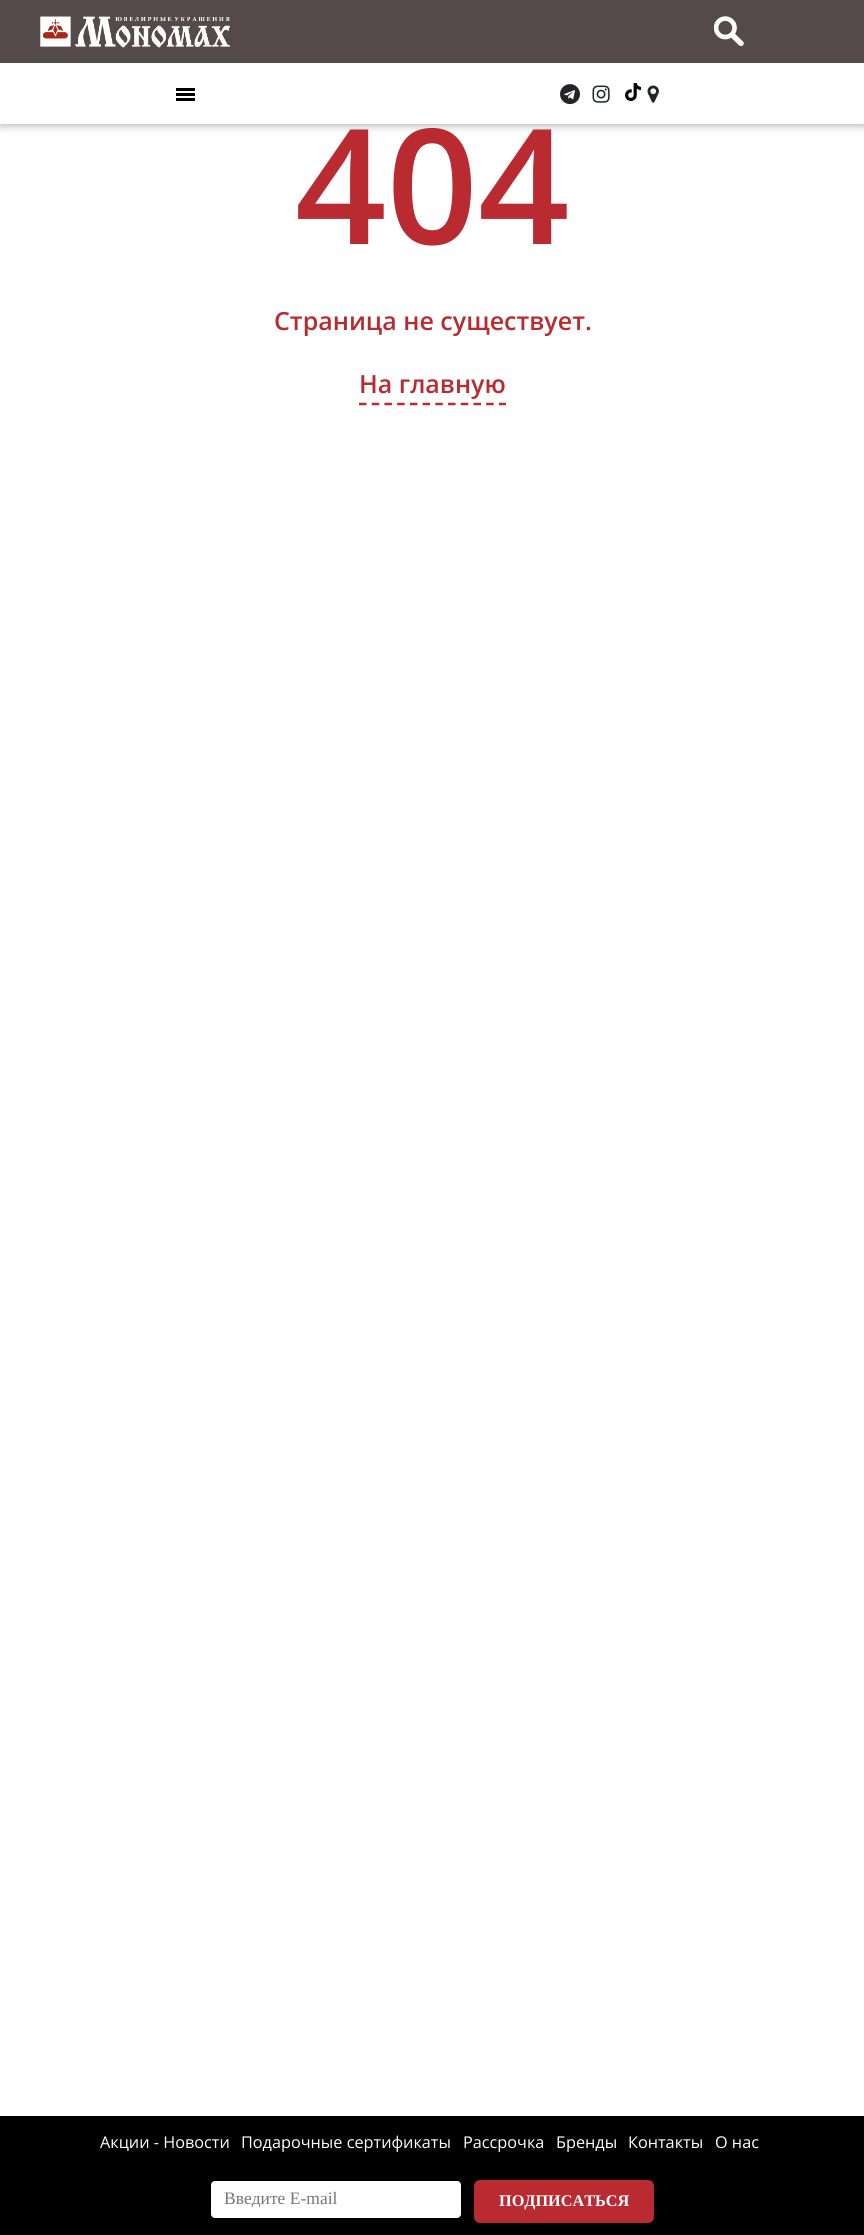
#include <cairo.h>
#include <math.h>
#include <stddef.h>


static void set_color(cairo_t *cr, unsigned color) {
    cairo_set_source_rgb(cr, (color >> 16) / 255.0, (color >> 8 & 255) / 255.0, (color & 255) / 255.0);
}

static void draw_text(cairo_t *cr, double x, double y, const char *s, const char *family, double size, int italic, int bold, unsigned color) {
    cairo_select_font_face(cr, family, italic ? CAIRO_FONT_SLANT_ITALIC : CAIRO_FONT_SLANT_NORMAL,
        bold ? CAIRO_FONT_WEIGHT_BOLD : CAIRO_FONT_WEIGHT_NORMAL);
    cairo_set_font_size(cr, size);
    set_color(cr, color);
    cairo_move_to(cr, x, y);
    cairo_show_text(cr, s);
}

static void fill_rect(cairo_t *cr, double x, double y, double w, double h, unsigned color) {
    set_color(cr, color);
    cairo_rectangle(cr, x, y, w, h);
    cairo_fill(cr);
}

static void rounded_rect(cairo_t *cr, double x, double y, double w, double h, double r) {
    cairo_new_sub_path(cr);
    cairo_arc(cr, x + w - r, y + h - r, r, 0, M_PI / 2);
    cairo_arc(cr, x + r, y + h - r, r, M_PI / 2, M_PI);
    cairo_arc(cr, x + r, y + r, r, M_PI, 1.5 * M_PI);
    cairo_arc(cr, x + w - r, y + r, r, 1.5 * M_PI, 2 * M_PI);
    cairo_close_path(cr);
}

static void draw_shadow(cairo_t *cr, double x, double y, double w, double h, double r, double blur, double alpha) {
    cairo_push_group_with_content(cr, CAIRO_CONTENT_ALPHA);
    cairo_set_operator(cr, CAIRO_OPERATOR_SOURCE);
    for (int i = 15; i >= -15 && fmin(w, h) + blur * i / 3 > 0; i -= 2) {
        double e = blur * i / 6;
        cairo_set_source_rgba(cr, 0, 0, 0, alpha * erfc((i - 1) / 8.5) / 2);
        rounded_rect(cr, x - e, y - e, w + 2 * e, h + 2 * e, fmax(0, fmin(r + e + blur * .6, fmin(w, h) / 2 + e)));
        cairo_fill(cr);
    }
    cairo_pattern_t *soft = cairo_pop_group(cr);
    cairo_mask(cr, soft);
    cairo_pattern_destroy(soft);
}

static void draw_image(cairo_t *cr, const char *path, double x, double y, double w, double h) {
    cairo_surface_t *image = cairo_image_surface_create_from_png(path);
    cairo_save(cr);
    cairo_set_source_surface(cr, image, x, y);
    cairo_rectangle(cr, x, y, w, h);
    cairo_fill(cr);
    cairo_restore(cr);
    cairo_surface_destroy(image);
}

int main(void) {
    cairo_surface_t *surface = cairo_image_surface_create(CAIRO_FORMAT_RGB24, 864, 2235);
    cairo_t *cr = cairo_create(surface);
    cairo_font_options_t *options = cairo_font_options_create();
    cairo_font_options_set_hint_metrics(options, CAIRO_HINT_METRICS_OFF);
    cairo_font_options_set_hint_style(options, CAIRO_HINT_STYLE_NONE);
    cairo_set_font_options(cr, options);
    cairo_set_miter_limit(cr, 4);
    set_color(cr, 0xFFFFFF);
    cairo_paint(cr);
    set_color(cr, 0x000000);
    draw_shadow(cr, 0, 0, 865, 124, 0, 5, 0.4);
    fill_rect(cr, 0, 63, 864, 61, 0xFFFFFF);
    fill_rect(cr, 0, 0, 864, 63, 0x544A4B);
    draw_image(cr, "assets/img1.png", 40, 16, 190, 32);
    draw_image(cr, "assets/img2.png", 714, 16, 30, 30);
    fill_rect(cr, 176, 88, 19, 3, 0x000000);
    fill_rect(cr, 176, 93, 19, 3, 0x000000);
    fill_rect(cr, 176, 98, 19, 3, 0x000000);
    draw_image(cr, "assets/img3.png", 560, 84, 20, 21);
    draw_image(cr, "assets/img4.png", 592, 85, 18, 18);
    draw_image(cr, "assets/img5.png", 625, 83, 16, 18);
    draw_image(cr, "assets/img6.png", 647, 85, 12, 18);
    draw_text(cr, 295, 244, "404", "Open Sans SemiBold", 160, 0, 0, 0xBA2B31);
    draw_text(cr, 274, 330, "Страница не существует.", "Open Sans SemiBold", 25, 0, 0, 0xBA2B31);
    cairo_new_path(cr);
    cairo_move_to(cr, 359, 404);
    cairo_line_to(cr, 506, 404);
    cairo_set_line_width(cr, 2.5);
    cairo_set_dash(cr, (double[]){7.5, 5.22}, 2, 0);
    cairo_stroke(cr);
    draw_text(cr, 359, 393, "На главную", "Open Sans SemiBold", 25, 0, 0, 0xBA2B31);
    fill_rect(cr, 0, 2116, 864, 119, 0x000000);
    draw_text(cr, 100, 2148, "Акции - Новости", "Open Sans", 16.25, 0, 0, 0xFFFFFF);
    draw_text(cr, 241, 2148, "Подарочные сертификаты", "Open Sans", 16.25, 0, 0, 0xFFFFFF);
    draw_text(cr, 463, 2148, "Рассрочка", "Open Sans", 16.25, 0, 0, 0xFFFFFF);
    draw_text(cr, 556, 2148, "Бренды", "Open Sans", 16.25, 0, 0, 0xFFFFFF);
    draw_text(cr, 628, 2148, "Контакты", "Open Sans", 16.25, 0, 0, 0xFFFFFF);
    draw_text(cr, 715, 2148, "О нас", "Open Sans", 16.25, 0, 0, 0xFFFFFF);
    rounded_rect(cr, 211, 2181, 250, 37, 4);
    cairo_fill(cr);
    draw_text(cr, 224, 2204, "Введите E-mail", "Liberation Serif", 17.5, 0, 0, 0x757575);
    set_color(cr, 0xBA2B31);
    rounded_rect(cr, 474, 2180, 180, 43, 6);
    cairo_fill(cr);
    draw_text(cr, 499, 2206, "ПОДПИСАТЬСЯ", "Liberation Serif", 16.25, 0, 1, 0xFFFFFF);
    cairo_surface_write_to_png(surface, "output.png");
    cairo_font_options_destroy(options);
    cairo_destroy(cr);
    cairo_surface_destroy(surface);
    return 0;
}
